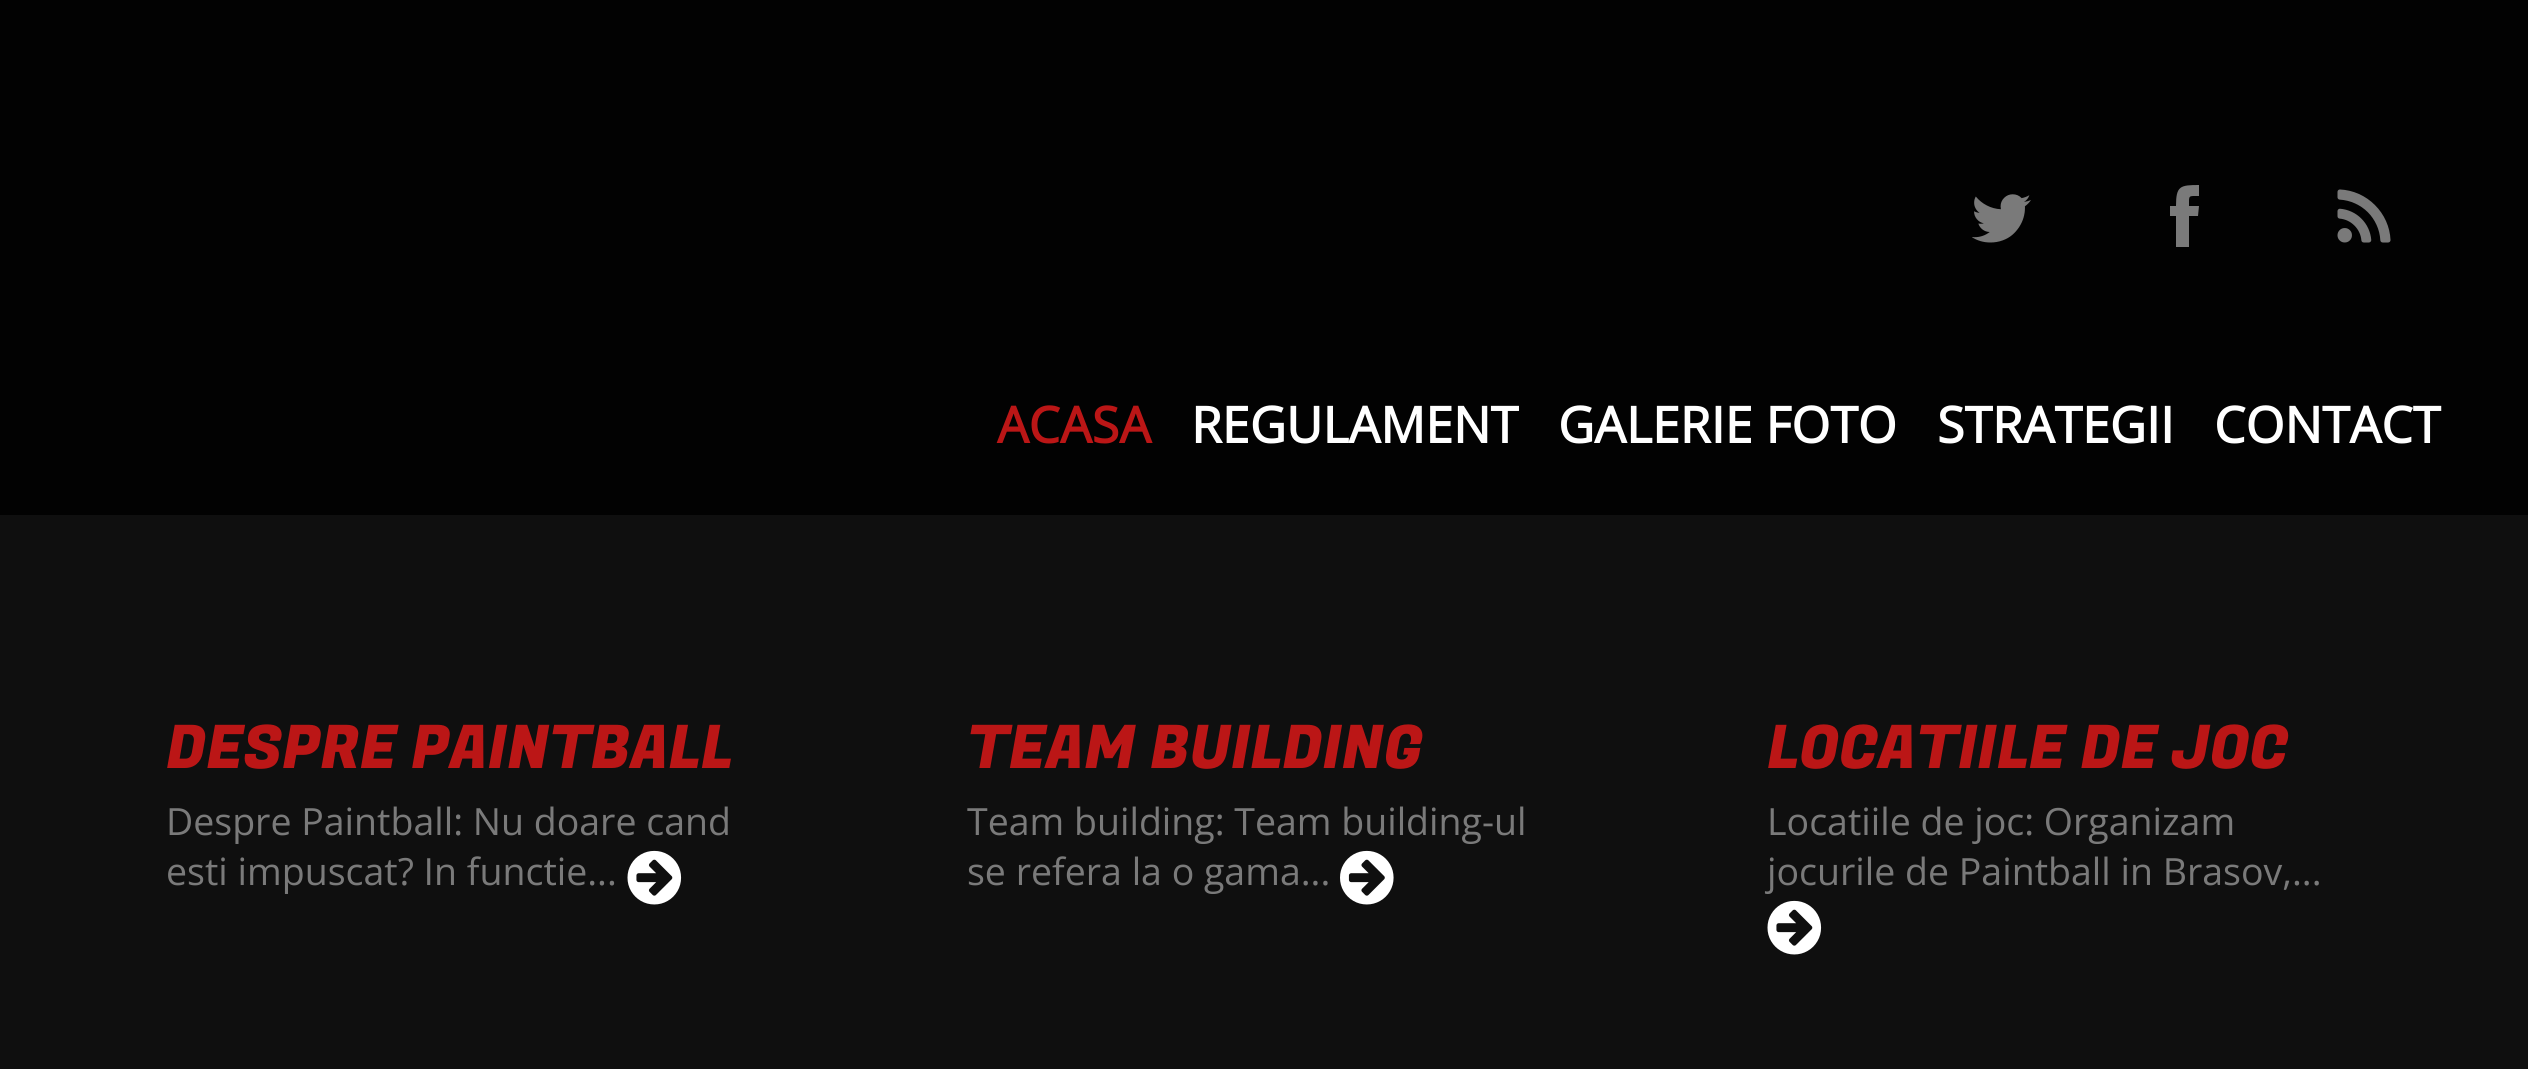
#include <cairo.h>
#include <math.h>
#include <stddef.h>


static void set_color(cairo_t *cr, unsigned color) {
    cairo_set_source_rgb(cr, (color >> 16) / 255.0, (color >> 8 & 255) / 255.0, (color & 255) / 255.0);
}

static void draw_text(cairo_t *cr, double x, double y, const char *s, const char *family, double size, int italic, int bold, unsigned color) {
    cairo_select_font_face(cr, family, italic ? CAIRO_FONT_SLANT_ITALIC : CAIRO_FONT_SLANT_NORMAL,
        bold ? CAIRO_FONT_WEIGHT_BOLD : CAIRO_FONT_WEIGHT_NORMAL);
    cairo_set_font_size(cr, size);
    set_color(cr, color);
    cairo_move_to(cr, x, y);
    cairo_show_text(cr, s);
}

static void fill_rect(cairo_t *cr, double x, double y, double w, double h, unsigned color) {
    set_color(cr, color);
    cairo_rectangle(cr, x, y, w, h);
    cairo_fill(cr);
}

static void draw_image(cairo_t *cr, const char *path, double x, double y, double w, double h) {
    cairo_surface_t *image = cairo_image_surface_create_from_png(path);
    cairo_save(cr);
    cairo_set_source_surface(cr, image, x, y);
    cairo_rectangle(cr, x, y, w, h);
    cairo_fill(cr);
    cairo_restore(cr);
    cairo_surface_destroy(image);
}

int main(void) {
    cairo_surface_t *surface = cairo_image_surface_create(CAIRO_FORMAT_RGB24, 2528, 1069);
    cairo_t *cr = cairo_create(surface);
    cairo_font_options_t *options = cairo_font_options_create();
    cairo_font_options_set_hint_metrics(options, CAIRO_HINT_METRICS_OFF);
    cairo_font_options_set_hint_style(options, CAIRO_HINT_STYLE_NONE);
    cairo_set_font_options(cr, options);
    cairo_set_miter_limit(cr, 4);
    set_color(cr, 0x0F0F0F);
    cairo_paint(cr);
    fill_rect(cr, 0, 0, 2528, 515, 0x020202);
    draw_image(cr, "assets/img1.png", 1972, 194, 59, 49);
    set_color(cr, 0x7A7A7A);
    cairo_new_path(cr);
    cairo_move_to(cr, 2189, 206);
    cairo_line_to(cr, 2199, 206);
    cairo_line_to(cr, 2198, 216);
    cairo_line_to(cr, 2189, 216);
    cairo_line_to(cr, 2189, 247);
    cairo_line_to(cr, 2176, 247);
    cairo_line_to(cr, 2176, 216);
    cairo_line_to(cr, 2170, 216);
    cairo_line_to(cr, 2170, 206);
    cairo_line_to(cr, 2176, 206);
    cairo_curve_to(cr, 2176, 186, 2180, 185, 2199, 185);
    cairo_line_to(cr, 2199, 196);
    cairo_curve_to(cr, 2188, 196, 2189, 195, 2189, 206);
    cairo_close_path(cr);
    cairo_fill(cr);
    draw_image(cr, "assets/img2.png", 2337, 189, 54, 54);
    draw_text(cr, 997, 443, "ACASA", "Open Sans", 50, 0, 1, 0xBB1616);
    draw_text(cr, 1191, 443, "REGULAMENT", "Open Sans", 50, 0, 1, 0xFFFFFF);
    draw_text(cr, 1558, 443, "GALERIE FOTO", "Open Sans", 50, 0, 1, 0xFFFFFF);
    draw_text(cr, 1937, 443, "STRATEGII", "Open Sans", 50, 0, 1, 0xFFFFFF);
    draw_text(cr, 2214, 443, "CONTACT", "Open Sans", 50, 0, 1, 0xFFFFFF);
    draw_text(cr, 166, 768, "DESPRE PAINTBALL", "Fugaz One", 60, 0, 0, 0xBB1616);
    draw_text(cr, 166, 835, "Despre Paintball: Nu doare cand", "Open Sans", 37.5, 0, 0, 0x7A7A7A);
    draw_text(cr, 166, 885, "esti impuscat? In functie...", "Open Sans", 37.5, 0, 0, 0x7A7A7A);
    draw_image(cr, "assets/img3.png", 627, 850, 55, 55);
    draw_text(cr, 967, 768, "TEAM BUILDING", "Fugaz One", 60, 0, 0, 0xBB1616);
    draw_text(cr, 967, 835, "Team building: Team building-ul", "Open Sans", 37.5, 0, 0, 0x7A7A7A);
    draw_text(cr, 967, 885, "se refera la o gama...", "Open Sans", 37.5, 0, 0, 0x7A7A7A);
    draw_image(cr, "assets/img4.png", 1340, 850, 54, 55);
    draw_text(cr, 1767, 768, "LOCATIILE DE JOC", "Fugaz One", 60, 0, 0, 0xBB1616);
    draw_text(cr, 1767, 835, "Locatiile de joc: Organizam", "Open Sans", 37.5, 0, 0, 0x7A7A7A);
    draw_text(cr, 1767, 885, "jocurile de Paintball in Brasov,...", "Open Sans", 37.5, 0, 0, 0x7A7A7A);
    draw_image(cr, "assets/img3.png", 1767, 900, 55, 55);
    cairo_surface_write_to_png(surface, "output.png");
    cairo_font_options_destroy(options);
    cairo_destroy(cr);
    cairo_surface_destroy(surface);
    return 0;
}
